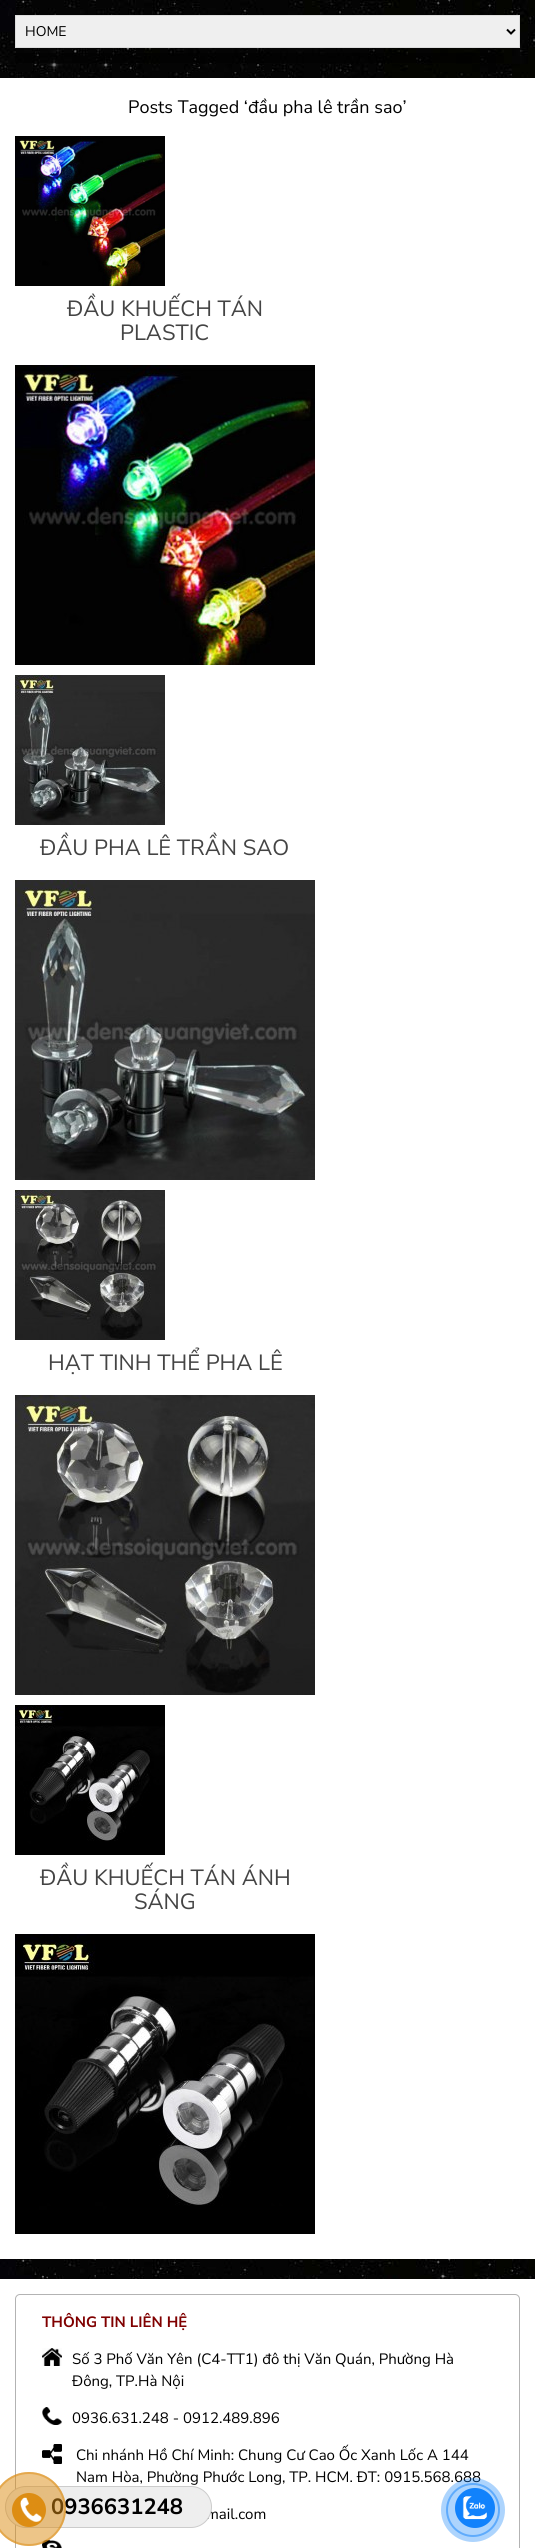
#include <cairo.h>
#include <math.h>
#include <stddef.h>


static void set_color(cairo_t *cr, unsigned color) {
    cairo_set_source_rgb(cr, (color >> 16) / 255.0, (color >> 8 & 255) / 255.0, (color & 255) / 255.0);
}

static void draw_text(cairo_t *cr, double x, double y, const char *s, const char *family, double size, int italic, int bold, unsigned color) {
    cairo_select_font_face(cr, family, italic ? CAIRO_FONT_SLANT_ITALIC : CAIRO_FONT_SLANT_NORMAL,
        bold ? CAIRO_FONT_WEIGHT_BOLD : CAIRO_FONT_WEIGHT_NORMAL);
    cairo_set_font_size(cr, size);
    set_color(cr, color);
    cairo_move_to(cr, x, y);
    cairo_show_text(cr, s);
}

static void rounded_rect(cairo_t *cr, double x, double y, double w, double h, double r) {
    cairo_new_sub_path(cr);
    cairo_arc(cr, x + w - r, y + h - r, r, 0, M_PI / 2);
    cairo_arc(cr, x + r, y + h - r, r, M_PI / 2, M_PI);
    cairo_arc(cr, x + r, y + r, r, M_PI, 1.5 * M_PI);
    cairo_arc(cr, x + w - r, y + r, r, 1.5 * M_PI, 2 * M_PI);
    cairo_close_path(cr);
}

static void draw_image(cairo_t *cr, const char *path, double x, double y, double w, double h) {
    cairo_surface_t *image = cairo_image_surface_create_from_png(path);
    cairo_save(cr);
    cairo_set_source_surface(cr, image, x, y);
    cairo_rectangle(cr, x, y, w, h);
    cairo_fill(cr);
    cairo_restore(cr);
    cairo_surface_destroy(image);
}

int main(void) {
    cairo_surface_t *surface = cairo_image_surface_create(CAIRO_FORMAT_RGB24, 535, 2548);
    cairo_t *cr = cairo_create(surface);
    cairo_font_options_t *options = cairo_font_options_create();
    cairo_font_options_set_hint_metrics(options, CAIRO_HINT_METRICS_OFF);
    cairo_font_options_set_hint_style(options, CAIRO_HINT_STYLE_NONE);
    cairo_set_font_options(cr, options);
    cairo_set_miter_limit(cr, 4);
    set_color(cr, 0xFFFFFF);
    cairo_paint(cr);
    draw_image(cr, "assets/img1.png", 0, 0, 535, 78);
    set_color(cr, 0xEFEFEF);
    cairo_rectangle(cr, 15.5, 15.5, 504, 32);
    cairo_fill_preserve(cr);
    set_color(cr, 0xDDDDDD);
    cairo_set_line_width(cr, 1);
    cairo_stroke(cr);
    cairo_new_path(cr);
    cairo_move_to(cr, 507, 29.5);
    cairo_line_to(cr, 511, 33.5);
    cairo_line_to(cr, 515, 29.5);
    set_color(cr, 0x000000);
    cairo_set_line_width(cr, 2);
    cairo_stroke(cr);
    draw_text(cr, 25, 36, "HOME", "Nunito Sans", 14, 0, 0, 0x000000);
    cairo_set_source_rgba(cr, 0, 0, 0, 0.5);
    cairo_rectangle(cr, 15, 53, 489, 10);
    cairo_fill(cr);
    draw_text(cr, 128, 113, "Posts Tagged ‘đầu pha lê trần sao’", "Nunito Sans", 18, 0, 0, 0x000000);
    draw_image(cr, "assets/img2.png", 15, 136, 150, 150);
    draw_text(cr, 67, 316, "ĐẦU KHUẾCH TÁN", "Nunito Sans", 22, 0, 0, 0x444444);
    draw_text(cr, 120, 340, "PLASTIC", "Nunito Sans", 22, 0, 0, 0x444444);
    draw_image(cr, "assets/img3.png", 15, 365, 300, 300);
    draw_image(cr, "assets/img4.png", 15, 675, 150, 150);
    draw_text(cr, 40, 855, "ĐẦU PHA LÊ TRẦN SAO", "Nunito Sans", 22, 0, 0, 0x444444);
    draw_image(cr, "assets/img5.png", 15, 880, 300, 300);
    draw_image(cr, "assets/img6.png", 15, 1190, 150, 150);
    draw_text(cr, 48, 1370, "HẠT TINH THỂ PHA LÊ", "Nunito Sans", 22, 0, 0, 0x444444);
    draw_image(cr, "assets/img7.png", 15, 1395, 300, 300);
    draw_image(cr, "assets/img8.png", 15, 1705, 150, 150);
    draw_text(cr, 40, 1885, "ĐẦU KHUẾCH TÁN ÁNH", "Nunito Sans", 22, 0, 0, 0x444444);
    draw_text(cr, 134, 1909, "SÁNG", "Nunito Sans", 22, 0, 0, 0x444444);
    draw_image(cr, "assets/img9.png", 15, 1934, 300, 300);
    draw_image(cr, "assets/img10.png", 0, 2259, 535, 20);
    rounded_rect(cr, 15.5, 2294.5, 504, 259, 4.5);
    set_color(cr, 0xB3B3B3);
    cairo_set_line_width(cr, 1);
    cairo_stroke(cr);
    draw_text(cr, 42, 2327, "THÔNG TIN LIÊN HỆ", "Nunito Sans", 15, 0, 1, 0x800000);
    draw_image(cr, "assets/img11.png", 42, 2348, 20, 18);
    draw_text(cr, 72, 2364, "Số 3 Phố Văn Yên (C4-TT1) đô thị Văn Quán, Phường Hà", "Nunito Sans", 15, 0, 0, 0x000000);
    draw_text(cr, 72, 2386, "Đông, TP.Hà Nội", "Nunito Sans", 15, 0, 0, 0x000000);
    draw_image(cr, "assets/img12.png", 42, 2407, 20, 18);
    draw_text(cr, 72, 2423, "0936.631.248 - 0912.489.896", "Nunito Sans", 15, 0, 0, 0x000000);
    draw_image(cr, "assets/img13.png", 42, 2444, 20, 20);
    draw_text(cr, 76, 2460, "Chi nhánh Hồ Chí Minh: Chung Cư Cao Ốc Xanh Lốc A 144", "Nunito Sans", 15, 0, 0, 0x000000);
    draw_text(cr, 76, 2482, "Nam Hòa, Phường Phước Long, TP. HCM. ĐT: 0915.568.688", "Nunito Sans", 15, 0, 0, 0x000000);
    draw_text(cr, 206, 2519, "mail.com", "Nunito Sans", 15, 0, 0, 0x000000);
    draw_image(cr, "assets/img14.png", 42, 2540, 20, 8);
    set_color(cr, 0xEEEEEE);
    rounded_rect(cr, 5.5, 2486.5, 206, 41, 20.5);
    cairo_fill_preserve(cr);
    set_color(cr, 0xCCCCCC);
    cairo_stroke(cr);
    draw_text(cr, 51, 2514, "0936631248", "Nunito Sans", 22, 0, 1, 0x000000);
    cairo_set_source_rgba(cr, 0.867, 0.553, 0.075, 0.5);
    cairo_new_path(cr);
    cairo_arc(cr, 29, 2509, 37, 0, 2 * M_PI);
    cairo_fill(cr);
    cairo_arc(cr, 29, 2509, 36, 0, 2 * M_PI);
    cairo_set_line_width(cr, 2);
    cairo_stroke(cr);
    set_color(cr, 0xDD8D13);
    cairo_arc(cr, 29, 2510, 17, 0, 2 * M_PI);
    cairo_fill(cr);
    draw_image(cr, "assets/img15.png", 20, 2497, 22, 25);
    cairo_arc(cr, 473, 2510, 26, 0, 2 * M_PI);
    set_color(cr, 0x88C1FE);
    cairo_stroke(cr);
    cairo_set_source_rgba(cr, 0.067, 0.51, 0.988, 0.34);
    cairo_arc(cr, 473, 2510, 32, 0, 2 * M_PI);
    cairo_fill(cr);
    set_color(cr, 0x1182FC);
    cairo_arc(cr, 475, 2508, 20, 0, 2 * M_PI);
    cairo_fill(cr);
    draw_image(cr, "assets/img16.png", 462, 2496, 25, 24);
    cairo_surface_write_to_png(surface, "output.png");
    cairo_font_options_destroy(options);
    cairo_destroy(cr);
    cairo_surface_destroy(surface);
    return 0;
}
